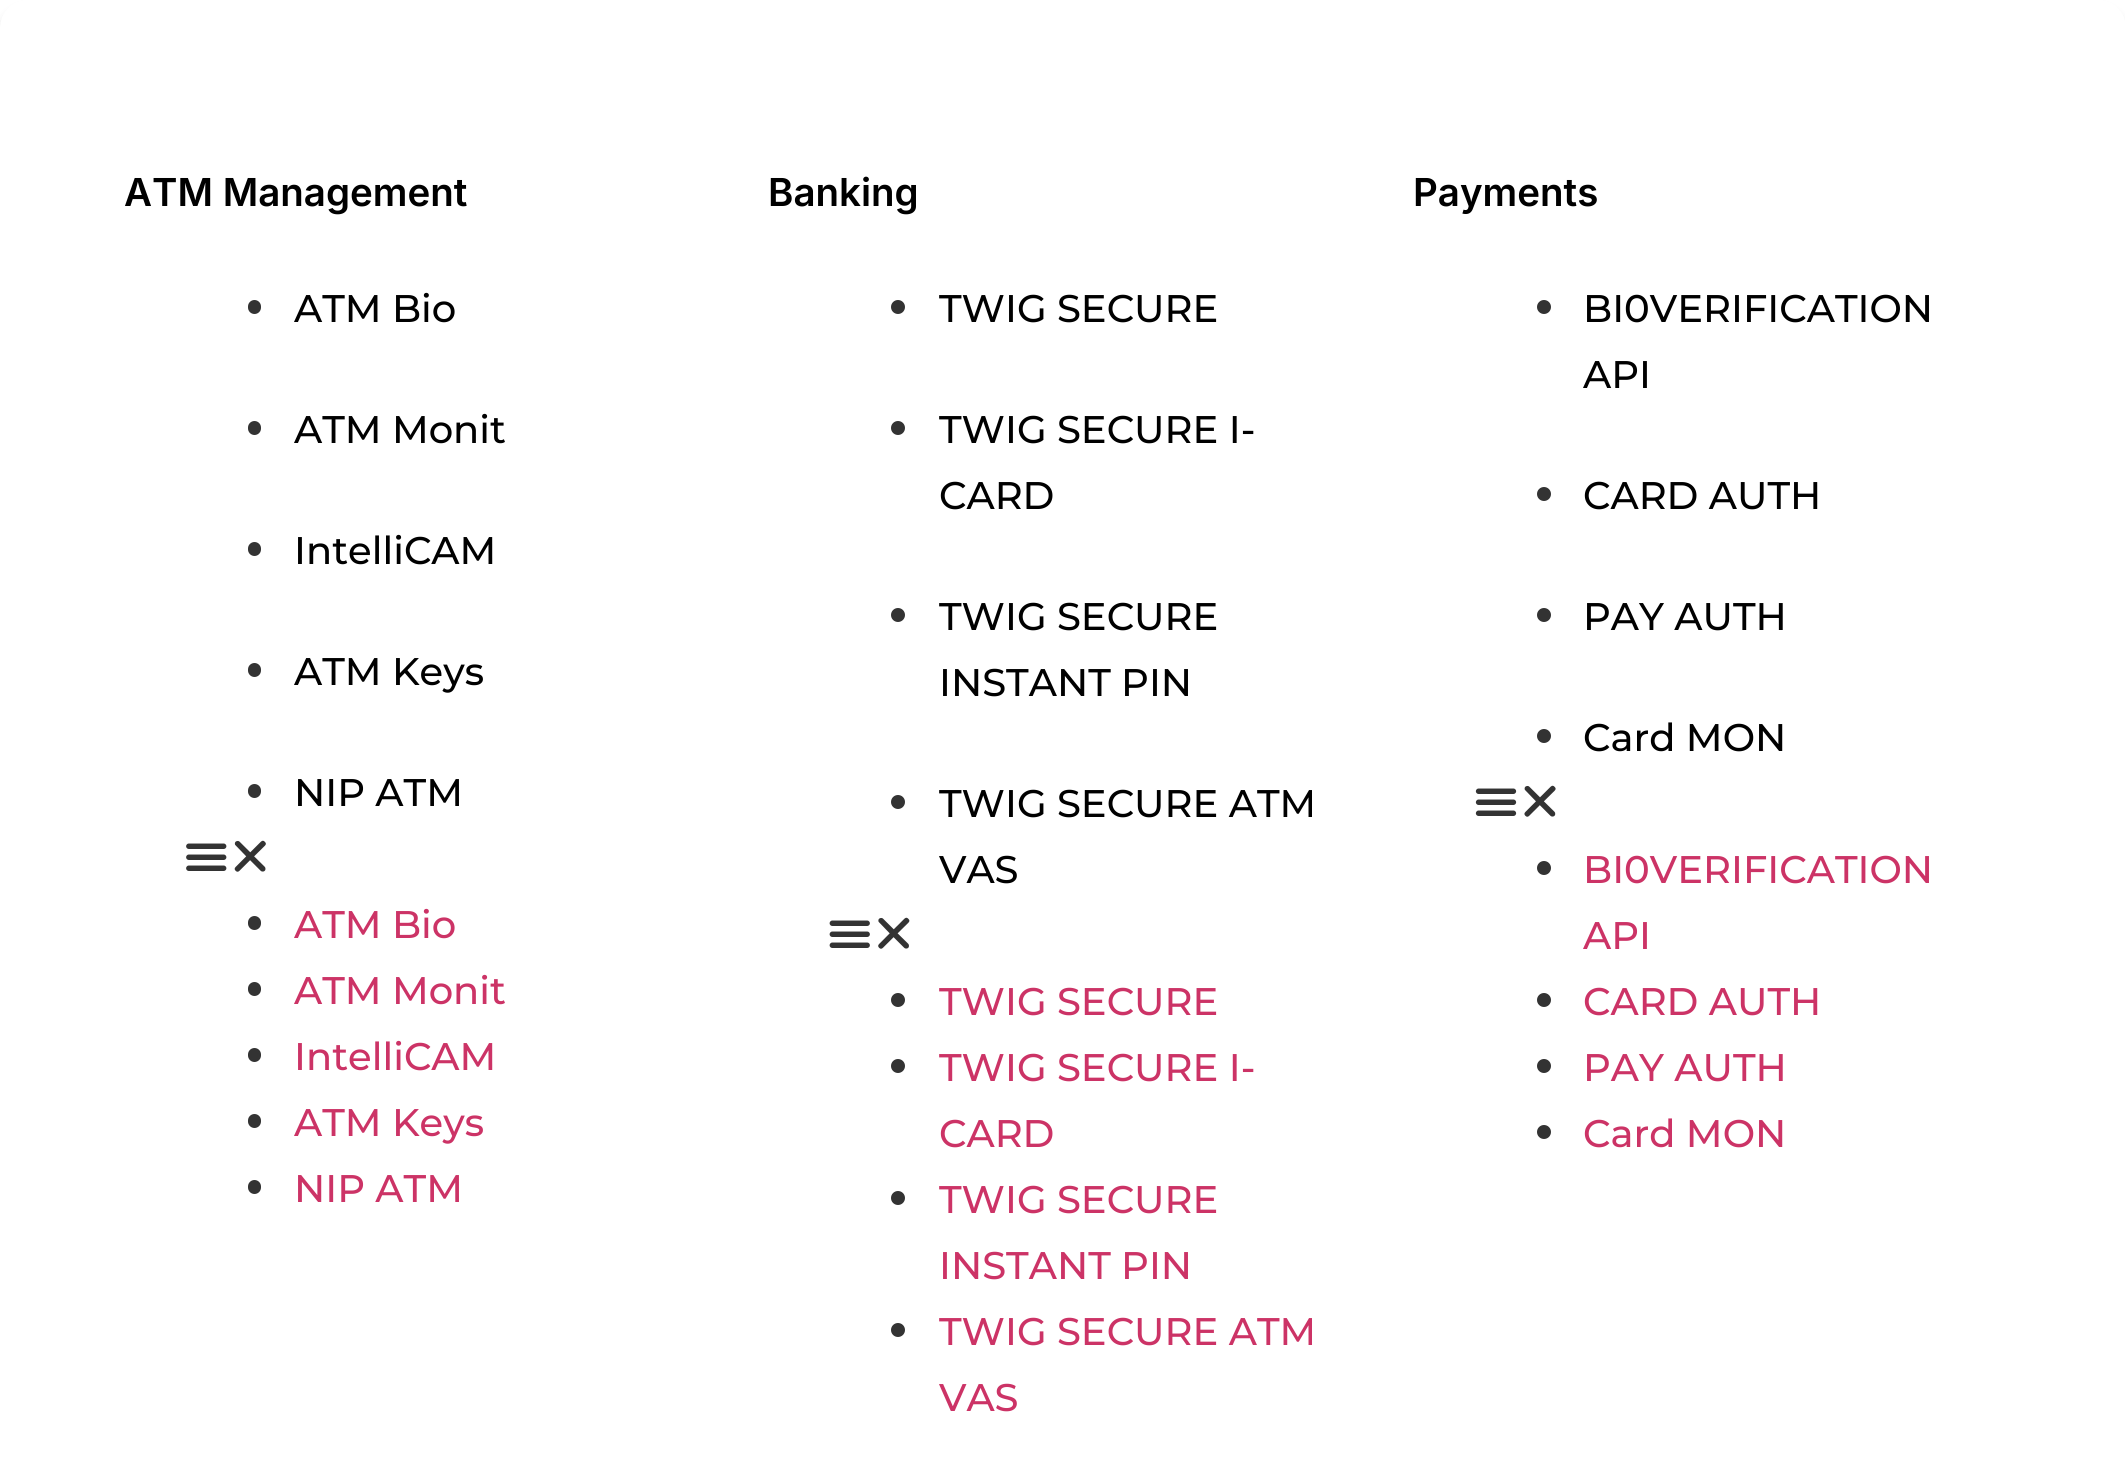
#include <cairo.h>
#include <math.h>
#include <stddef.h>


static void set_color(cairo_t *cr, unsigned color) {
    cairo_set_source_rgb(cr, (color >> 16) / 255.0, (color >> 8 & 255) / 255.0, (color & 255) / 255.0);
}

static void draw_text(cairo_t *cr, double x, double y, const char *s, const char *family, double size, int italic, int bold, unsigned color) {
    cairo_select_font_face(cr, family, italic ? CAIRO_FONT_SLANT_ITALIC : CAIRO_FONT_SLANT_NORMAL,
        bold ? CAIRO_FONT_WEIGHT_BOLD : CAIRO_FONT_WEIGHT_NORMAL);
    cairo_set_font_size(cr, size);
    set_color(cr, color);
    cairo_move_to(cr, x, y);
    cairo_show_text(cr, s);
}

static void rounded_rect(cairo_t *cr, double x, double y, double w, double h, double r) {
    cairo_new_sub_path(cr);
    cairo_arc(cr, x + w - r, y + h - r, r, 0, M_PI / 2);
    cairo_arc(cr, x + r, y + h - r, r, M_PI / 2, M_PI);
    cairo_arc(cr, x + r, y + r, r, M_PI, 1.5 * M_PI);
    cairo_arc(cr, x + w - r, y + r, r, 1.5 * M_PI, 2 * M_PI);
    cairo_close_path(cr);
}

static void draw_shadow(cairo_t *cr, double x, double y, double w, double h, double r, double blur, double alpha) {
    cairo_push_group_with_content(cr, CAIRO_CONTENT_ALPHA);
    cairo_set_operator(cr, CAIRO_OPERATOR_SOURCE);
    for (int i = 15; i >= -15 && fmin(w, h) + blur * i / 3 > 0; i -= 2) {
        double e = blur * i / 6;
        cairo_set_source_rgba(cr, 0, 0, 0, alpha * erfc((i - 1) / 8.5) / 2);
        rounded_rect(cr, x - e, y - e, w + 2 * e, h + 2 * e, fmax(0, fmin(r + e + blur * .6, fmin(w, h) / 2 + e)));
        cairo_fill(cr);
    }
    cairo_pattern_t *soft = cairo_pop_group(cr);
    cairo_mask(cr, soft);
    cairo_pattern_destroy(soft);
}

static void draw_image(cairo_t *cr, const char *path, double x, double y, double w, double h) {
    cairo_surface_t *image = cairo_image_surface_create_from_png(path);
    cairo_save(cr);
    cairo_set_source_surface(cr, image, x, y);
    cairo_rectangle(cr, x, y, w, h);
    cairo_fill(cr);
    cairo_restore(cr);
    cairo_surface_destroy(image);
}

int main(void) {
    cairo_surface_t *surface = cairo_image_surface_create(CAIRO_FORMAT_RGB24, 2125, 1466);
    cairo_t *cr = cairo_create(surface);
    cairo_font_options_t *options = cairo_font_options_create();
    cairo_font_options_set_hint_metrics(options, CAIRO_HINT_METRICS_OFF);
    cairo_font_options_set_hint_style(options, CAIRO_HINT_STYLE_NONE);
    cairo_set_font_options(cr, options);
    cairo_set_miter_limit(cr, 4);
    set_color(cr, 0xFFFFFF);
    cairo_paint(cr);
    set_color(cr, 0x000000);
    draw_shadow(cr, 0, 11, 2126, 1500, 28, 5.5, 0.25);
    set_color(cr, 0xFFFFFF);
    rounded_rect(cr, 0, 0, 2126, 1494, 28);
    cairo_fill(cr);
    draw_text(cr, 124, 206, "ATM Management", "Inter SemiBold", 38.5, 0, 0, 0x000000);
    set_color(cr, 0x333333);
    rounded_rect(cr, 248, 300, 13, 14, 6.5);
    cairo_fill(cr);
    draw_text(cr, 294, 322, "ATM Bio", "Montserrat Medium", 38.5, 0, 0, 0x000000);
    set_color(cr, 0x333333);
    rounded_rect(cr, 248, 421, 13, 14, 6.5);
    cairo_fill(cr);
    draw_text(cr, 294, 443, "ATM Monit", "Montserrat Medium", 38.5, 0, 0, 0x000000);
    set_color(cr, 0x333333);
    rounded_rect(cr, 248, 542, 13, 14, 6.5);
    cairo_fill(cr);
    draw_text(cr, 294, 564, "IntelliCAM", "Montserrat Medium", 38.5, 0, 0, 0x000000);
    set_color(cr, 0x333333);
    rounded_rect(cr, 248, 663, 13, 14, 6.5);
    cairo_fill(cr);
    draw_text(cr, 294, 685, "ATM Keys", "Montserrat Medium", 38.5, 0, 0, 0x000000);
    set_color(cr, 0x333333);
    rounded_rect(cr, 248, 784, 13, 14, 6.5);
    cairo_fill(cr);
    draw_text(cr, 294, 806, "NIP ATM", "Montserrat Medium", 38.5, 0, 0, 0x000000);
    draw_image(cr, "assets/img1.png", 186, 843, 41, 28);
    draw_image(cr, "assets/img2.png", 234, 840, 32, 32);
    set_color(cr, 0x333333);
    rounded_rect(cr, 248, 916, 13, 14, 6.5);
    cairo_fill(cr);
    draw_text(cr, 294, 938, "ATM Bio", "Montserrat Medium", 38.5, 0, 0, 0xCC3366);
    set_color(cr, 0x333333);
    rounded_rect(cr, 248, 982, 13, 14, 6.5);
    cairo_fill(cr);
    draw_text(cr, 294, 1004, "ATM Monit", "Montserrat Medium", 38.5, 0, 0, 0xCC3366);
    set_color(cr, 0x333333);
    rounded_rect(cr, 248, 1048, 13, 14, 6.5);
    cairo_fill(cr);
    draw_text(cr, 294, 1070, "IntelliCAM", "Montserrat Medium", 38.5, 0, 0, 0xCC3366);
    set_color(cr, 0x333333);
    rounded_rect(cr, 248, 1114, 13, 14, 6.5);
    cairo_fill(cr);
    draw_text(cr, 294, 1136, "ATM Keys", "Montserrat Medium", 38.5, 0, 0, 0xCC3366);
    set_color(cr, 0x333333);
    rounded_rect(cr, 248, 1180, 13, 14, 6.5);
    cairo_fill(cr);
    draw_text(cr, 294, 1202, "NIP ATM", "Montserrat Medium", 38.5, 0, 0, 0xCC3366);
    draw_text(cr, 768, 206, "Banking", "Inter SemiBold", 38.5, 0, 0, 0x000000);
    set_color(cr, 0x333333);
    cairo_new_path(cr);
    cairo_arc(cr, 898, 307, 7, 0, 2 * M_PI);
    cairo_fill(cr);
    draw_text(cr, 939, 322, "TWIG SECURE", "Montserrat Medium", 38.5, 0, 0, 0x000000);
    set_color(cr, 0x333333);
    cairo_new_path(cr);
    cairo_arc(cr, 898, 428, 7, 0, 2 * M_PI);
    cairo_fill(cr);
    draw_text(cr, 939, 443, "TWIG SECURE I-", "Montserrat Medium", 38.5, 0, 0, 0x000000);
    draw_text(cr, 939, 509, "CARD", "Montserrat Medium", 38.5, 0, 0, 0x000000);
    set_color(cr, 0x333333);
    cairo_new_path(cr);
    cairo_arc(cr, 898, 615, 7, 0, 2 * M_PI);
    cairo_fill(cr);
    draw_text(cr, 939, 630, "TWIG SECURE", "Montserrat Medium", 38.5, 0, 0, 0x000000);
    draw_text(cr, 939, 696, "INSTANT PIN", "Montserrat Medium", 38.5, 0, 0, 0x000000);
    set_color(cr, 0x333333);
    cairo_new_path(cr);
    cairo_arc(cr, 898, 802, 7, 0, 2 * M_PI);
    cairo_fill(cr);
    draw_text(cr, 939, 817, "TWIG SECURE ATM", "Montserrat Medium", 38.5, 0, 0, 0x000000);
    draw_text(cr, 939, 883, "VAS", "Montserrat Medium", 38.5, 0, 0, 0x000000);
    draw_image(cr, "assets/img3.png", 829, 920, 41, 28);
    draw_image(cr, "assets/img4.png", 878, 917, 32, 32);
    set_color(cr, 0x333333);
    cairo_arc(cr, 898, 1000, 7, 0, 2 * M_PI);
    cairo_fill(cr);
    draw_text(cr, 939, 1015, "TWIG SECURE", "Montserrat Medium", 38.5, 0, 0, 0xCC3366);
    set_color(cr, 0x333333);
    cairo_new_path(cr);
    cairo_arc(cr, 898, 1066, 7, 0, 2 * M_PI);
    cairo_fill(cr);
    draw_text(cr, 939, 1081, "TWIG SECURE I-", "Montserrat Medium", 38.5, 0, 0, 0xCC3366);
    draw_text(cr, 939, 1147, "CARD", "Montserrat Medium", 38.5, 0, 0, 0xCC3366);
    set_color(cr, 0x333333);
    cairo_new_path(cr);
    cairo_arc(cr, 898, 1198, 7, 0, 2 * M_PI);
    cairo_fill(cr);
    draw_text(cr, 939, 1213, "TWIG SECURE", "Montserrat Medium", 38.5, 0, 0, 0xCC3366);
    draw_text(cr, 939, 1279, "INSTANT PIN", "Montserrat Medium", 38.5, 0, 0, 0xCC3366);
    set_color(cr, 0x333333);
    cairo_new_path(cr);
    cairo_arc(cr, 898, 1330, 7, 0, 2 * M_PI);
    cairo_fill(cr);
    draw_text(cr, 939, 1345, "TWIG SECURE ATM", "Montserrat Medium", 38.5, 0, 0, 0xCC3366);
    draw_text(cr, 939, 1411, "VAS", "Montserrat Medium", 38.5, 0, 0, 0xCC3366);
    draw_text(cr, 1413, 206, "Payments", "Inter SemiBold", 38.5, 0, 0, 0x000000);
    set_color(cr, 0x333333);
    cairo_new_path(cr);
    cairo_arc(cr, 1544, 307, 7, 0, 2 * M_PI);
    cairo_fill(cr);
    draw_text(cr, 1583, 322, "BI0VERIFICATION", "Montserrat Medium", 38.5, 0, 0, 0x000000);
    draw_text(cr, 1583, 388, "API", "Montserrat Medium", 38.5, 0, 0, 0x000000);
    set_color(cr, 0x333333);
    cairo_new_path(cr);
    cairo_arc(cr, 1544, 494, 7, 0, 2 * M_PI);
    cairo_fill(cr);
    draw_text(cr, 1583, 509, "CARD AUTH", "Montserrat Medium", 38.5, 0, 0, 0x000000);
    set_color(cr, 0x333333);
    cairo_new_path(cr);
    cairo_arc(cr, 1544, 615, 7, 0, 2 * M_PI);
    cairo_fill(cr);
    draw_text(cr, 1583, 630, "PAY AUTH", "Montserrat Medium", 38.5, 0, 0, 0x000000);
    set_color(cr, 0x333333);
    cairo_new_path(cr);
    cairo_arc(cr, 1544, 736, 7, 0, 2 * M_PI);
    cairo_fill(cr);
    draw_text(cr, 1583, 751, "Card MON", "Montserrat Medium", 38.5, 0, 0, 0x000000);
    draw_image(cr, "assets/img5.png", 1475, 788, 42, 28);
    draw_image(cr, "assets/img6.png", 1524, 785, 32, 32);
    set_color(cr, 0x333333);
    cairo_arc(cr, 1544, 868, 7, 0, 2 * M_PI);
    cairo_fill(cr);
    draw_text(cr, 1583, 883, "BI0VERIFICATION", "Montserrat Medium", 38.5, 0, 0, 0xCC3366);
    draw_text(cr, 1583, 949, "API", "Montserrat Medium", 38.5, 0, 0, 0xCC3366);
    set_color(cr, 0x333333);
    cairo_new_path(cr);
    cairo_arc(cr, 1544, 1000, 7, 0, 2 * M_PI);
    cairo_fill(cr);
    draw_text(cr, 1583, 1015, "CARD AUTH", "Montserrat Medium", 38.5, 0, 0, 0xCC3366);
    set_color(cr, 0x333333);
    cairo_new_path(cr);
    cairo_arc(cr, 1544, 1066, 7, 0, 2 * M_PI);
    cairo_fill(cr);
    draw_text(cr, 1583, 1081, "PAY AUTH", "Montserrat Medium", 38.5, 0, 0, 0xCC3366);
    set_color(cr, 0x333333);
    cairo_new_path(cr);
    cairo_arc(cr, 1544, 1132, 7, 0, 2 * M_PI);
    cairo_fill(cr);
    draw_text(cr, 1583, 1147, "Card MON", "Montserrat Medium", 38.5, 0, 0, 0xCC3366);
    cairo_surface_write_to_png(surface, "output.png");
    cairo_font_options_destroy(options);
    cairo_destroy(cr);
    cairo_surface_destroy(surface);
    return 0;
}
